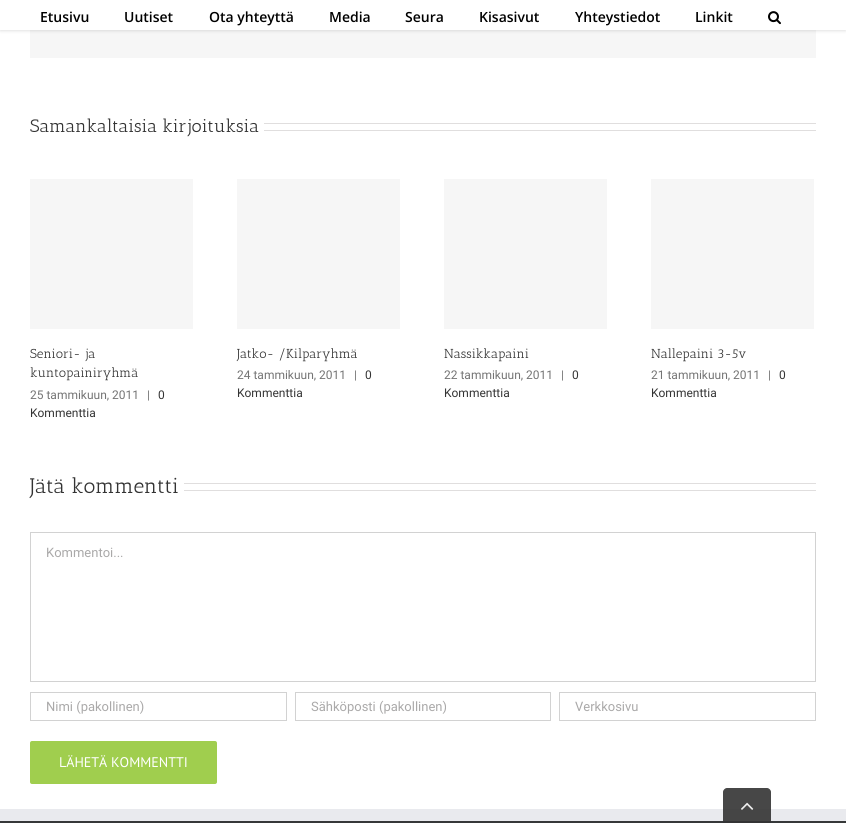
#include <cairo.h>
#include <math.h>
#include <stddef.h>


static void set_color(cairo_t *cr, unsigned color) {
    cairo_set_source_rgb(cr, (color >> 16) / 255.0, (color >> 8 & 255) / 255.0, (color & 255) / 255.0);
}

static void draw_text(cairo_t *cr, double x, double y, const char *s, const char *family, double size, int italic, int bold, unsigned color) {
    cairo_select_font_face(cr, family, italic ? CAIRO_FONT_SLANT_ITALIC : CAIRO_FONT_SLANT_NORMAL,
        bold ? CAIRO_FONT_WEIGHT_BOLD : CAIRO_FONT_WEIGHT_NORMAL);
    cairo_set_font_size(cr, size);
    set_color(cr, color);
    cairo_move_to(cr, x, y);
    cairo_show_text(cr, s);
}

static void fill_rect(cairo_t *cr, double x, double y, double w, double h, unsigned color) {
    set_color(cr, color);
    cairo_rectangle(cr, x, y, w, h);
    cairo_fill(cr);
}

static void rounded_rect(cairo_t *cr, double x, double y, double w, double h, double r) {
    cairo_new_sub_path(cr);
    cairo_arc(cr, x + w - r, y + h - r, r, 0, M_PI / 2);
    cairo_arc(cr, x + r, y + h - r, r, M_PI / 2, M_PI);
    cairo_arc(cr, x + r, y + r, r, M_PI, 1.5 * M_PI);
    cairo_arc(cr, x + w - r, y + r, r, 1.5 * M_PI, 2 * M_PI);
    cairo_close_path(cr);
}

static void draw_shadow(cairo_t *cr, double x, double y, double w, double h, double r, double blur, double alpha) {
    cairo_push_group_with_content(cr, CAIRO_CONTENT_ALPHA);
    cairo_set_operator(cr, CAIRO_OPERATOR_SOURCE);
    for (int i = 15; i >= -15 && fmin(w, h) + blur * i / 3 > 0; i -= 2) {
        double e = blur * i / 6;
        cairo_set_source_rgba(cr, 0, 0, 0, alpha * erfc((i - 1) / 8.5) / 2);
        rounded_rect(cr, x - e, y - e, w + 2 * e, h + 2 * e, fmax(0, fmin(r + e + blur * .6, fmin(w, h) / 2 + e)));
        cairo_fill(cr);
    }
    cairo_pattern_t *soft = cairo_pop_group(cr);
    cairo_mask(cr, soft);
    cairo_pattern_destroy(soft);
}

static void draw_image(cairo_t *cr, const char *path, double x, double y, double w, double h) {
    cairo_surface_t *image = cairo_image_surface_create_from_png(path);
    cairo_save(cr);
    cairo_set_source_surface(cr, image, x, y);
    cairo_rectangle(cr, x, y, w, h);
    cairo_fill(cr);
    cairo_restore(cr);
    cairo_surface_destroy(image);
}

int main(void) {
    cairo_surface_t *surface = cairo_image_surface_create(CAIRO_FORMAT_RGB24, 846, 823);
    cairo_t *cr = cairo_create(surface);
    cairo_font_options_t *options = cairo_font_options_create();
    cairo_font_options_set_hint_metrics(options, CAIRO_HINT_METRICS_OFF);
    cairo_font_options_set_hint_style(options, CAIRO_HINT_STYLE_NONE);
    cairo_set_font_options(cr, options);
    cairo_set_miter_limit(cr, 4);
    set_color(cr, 0xFFFFFF);
    cairo_paint(cr);
    fill_rect(cr, 30, 30, 786, 28, 0xF6F6F6);
    set_color(cr, 0x000000);
    draw_shadow(cr, 0, 1, 846, 30, 0, 1.5, 0.12);
    fill_rect(cr, 0, 0, 846, 30, 0xFFFFFF);
    draw_text(cr, 40, 22, "Etusivu", "Open Sans SemiBold", 14, 0, 0, 0x000000);
    draw_text(cr, 124, 22, "Uutiset", "Open Sans SemiBold", 14, 0, 0, 0x000000);
    draw_text(cr, 209, 22, "Ota yhteyttä", "Open Sans SemiBold", 14, 0, 0, 0x000000);
    draw_text(cr, 329, 22, "Media", "Open Sans SemiBold", 14, 0, 0, 0x000000);
    draw_text(cr, 405, 22, "Seura", "Open Sans SemiBold", 14, 0, 0, 0x000000);
    draw_text(cr, 479, 22, "Kisasivut", "Open Sans SemiBold", 14, 0, 0, 0x000000);
    draw_text(cr, 575, 22, "Yhteystiedot", "Open Sans SemiBold", 14, 0, 0, 0x000000);
    draw_text(cr, 695, 22, "Linkit", "Open Sans SemiBold", 14, 0, 0, 0x000000);
    draw_image(cr, "assets/img1.png", 768, 11, 13, 14);
    draw_text(cr, 30, 132, "Samankaltaisia kirjoituksia", "Antic Slab", 18, 0, 0, 0x333333);
    fill_rect(cr, 264, 123, 552, 1, 0xE0DEDE);
    fill_rect(cr, 264, 130, 552, 1, 0xE0DEDE);
    fill_rect(cr, 30, 179, 163, 150, 0xF6F6F6);
    draw_text(cr, 30, 358, "Seniori- ja", "Antic Slab", 13, 0, 0, 0x333333);
    draw_text(cr, 30, 377, "kuntopainiryhmä", "Antic Slab", 13, 0, 0, 0x333333);
    draw_text(cr, 30, 399, "25 tammikuun, 2011", "Roboto", 12, 0, 0, 0x747474);
    draw_text(cr, 147, 399, "|", "Roboto", 12, 0, 0, 0x747474);
    draw_text(cr, 158, 399, "0", "Roboto", 12, 0, 0, 0x333333);
    draw_text(cr, 30, 417, "Kommenttia", "Roboto", 12, 0, 0, 0x333333);
    fill_rect(cr, 237, 179, 163, 150, 0xF6F6F6);
    draw_text(cr, 237, 358, "Jatko- /Kilparyhmä", "Antic Slab", 13, 0, 0, 0x333333);
    draw_text(cr, 237, 379, "24 tammikuun, 2011", "Roboto", 12, 0, 0, 0x747474);
    draw_text(cr, 354, 379, "|", "Roboto", 12, 0, 0, 0x747474);
    draw_text(cr, 365, 379, "0", "Roboto", 12, 0, 0, 0x333333);
    draw_text(cr, 237, 397, "Kommenttia", "Roboto", 12, 0, 0, 0x333333);
    fill_rect(cr, 444, 179, 163, 150, 0xF6F6F6);
    draw_text(cr, 444, 358, "Nassikkapaini", "Antic Slab", 13, 0, 0, 0x333333);
    draw_text(cr, 444, 379, "22 tammikuun, 2011", "Roboto", 12, 0, 0, 0x747474);
    draw_text(cr, 561, 379, "|", "Roboto", 12, 0, 0, 0x747474);
    draw_text(cr, 572, 379, "0", "Roboto", 12, 0, 0, 0x333333);
    draw_text(cr, 444, 397, "Kommenttia", "Roboto", 12, 0, 0, 0x333333);
    fill_rect(cr, 651, 179, 163, 150, 0xF6F6F6);
    draw_text(cr, 651, 358, "Nallepaini 3-5v", "Antic Slab", 13, 0, 0, 0x333333);
    draw_text(cr, 651, 379, "21 tammikuun, 2011", "Roboto", 12, 0, 0, 0x747474);
    draw_text(cr, 768, 379, "|", "Roboto", 12, 0, 0, 0x747474);
    draw_text(cr, 779, 379, "0", "Roboto", 12, 0, 0, 0x333333);
    draw_text(cr, 651, 397, "Kommenttia", "Roboto", 12, 0, 0, 0x333333);
    draw_text(cr, 30, 493, "Jätä kommentti", "Antic Slab", 21, 0, 0, 0x333333);
    fill_rect(cr, 184, 483, 632, 1, 0xE0DEDE);
    fill_rect(cr, 184, 490, 632, 1, 0xE0DEDE);
    cairo_rectangle(cr, 30.5, 532.5, 785, 149);
    set_color(cr, 0xD2D2D2);
    cairo_set_line_width(cr, 1);
    cairo_stroke(cr);
    draw_text(cr, 46, 557, "Kommentoi...", "Roboto", 13, 0, 0, 0xAAA9A9);
    cairo_rectangle(cr, 30.5, 692.5, 256, 28);
    set_color(cr, 0xD2D2D2);
    cairo_stroke(cr);
    draw_text(cr, 46, 711, "Nimi (pakollinen)", "Roboto", 13, 0, 0, 0xAAA9A9);
    cairo_rectangle(cr, 295.5, 692.5, 255, 28);
    set_color(cr, 0xD2D2D2);
    cairo_stroke(cr);
    draw_text(cr, 311, 711, "Sähköposti (pakollinen)", "Roboto", 13, 0, 0, 0xAAA9A9);
    cairo_rectangle(cr, 559.5, 692.5, 256, 28);
    set_color(cr, 0xD2D2D2);
    cairo_stroke(cr);
    draw_text(cr, 575, 711, "Verkkosivu", "Roboto", 13, 0, 0, 0xAAA9A9);
    set_color(cr, 0xA0CE4E);
    rounded_rect(cr, 30, 741, 187, 43, 2);
    cairo_fill(cr);
    draw_text(cr, 59, 767, "LÄHETÄ KOMMENTTI", "PT Sans", 14, 0, 0, 0xFFFFFF);
    fill_rect(cr, 0, 821, 846, 2, 0x363839);
    fill_rect(cr, 0, 809, 846, 12, 0xE9EAEE);
    cairo_set_source_rgba(cr, 0.2, 0.2, 0.2, 0.9);
    cairo_new_path(cr);
    cairo_move_to(cr, 727, 788);
    cairo_line_to(cr, 767, 788);
    cairo_curve_to(cr, 769, 788, 771, 790, 771, 792);
    cairo_line_to(cr, 771, 823);
    cairo_line_to(cr, 723, 823);
    cairo_line_to(cr, 723, 792);
    cairo_curve_to(cr, 723, 790, 725, 788, 727, 788);
    cairo_close_path(cr);
    cairo_fill(cr);
    draw_image(cr, "assets/img2.png", 741, 802, 13, 8);
    cairo_surface_write_to_png(surface, "output.png");
    cairo_font_options_destroy(options);
    cairo_destroy(cr);
    cairo_surface_destroy(surface);
    return 0;
}
